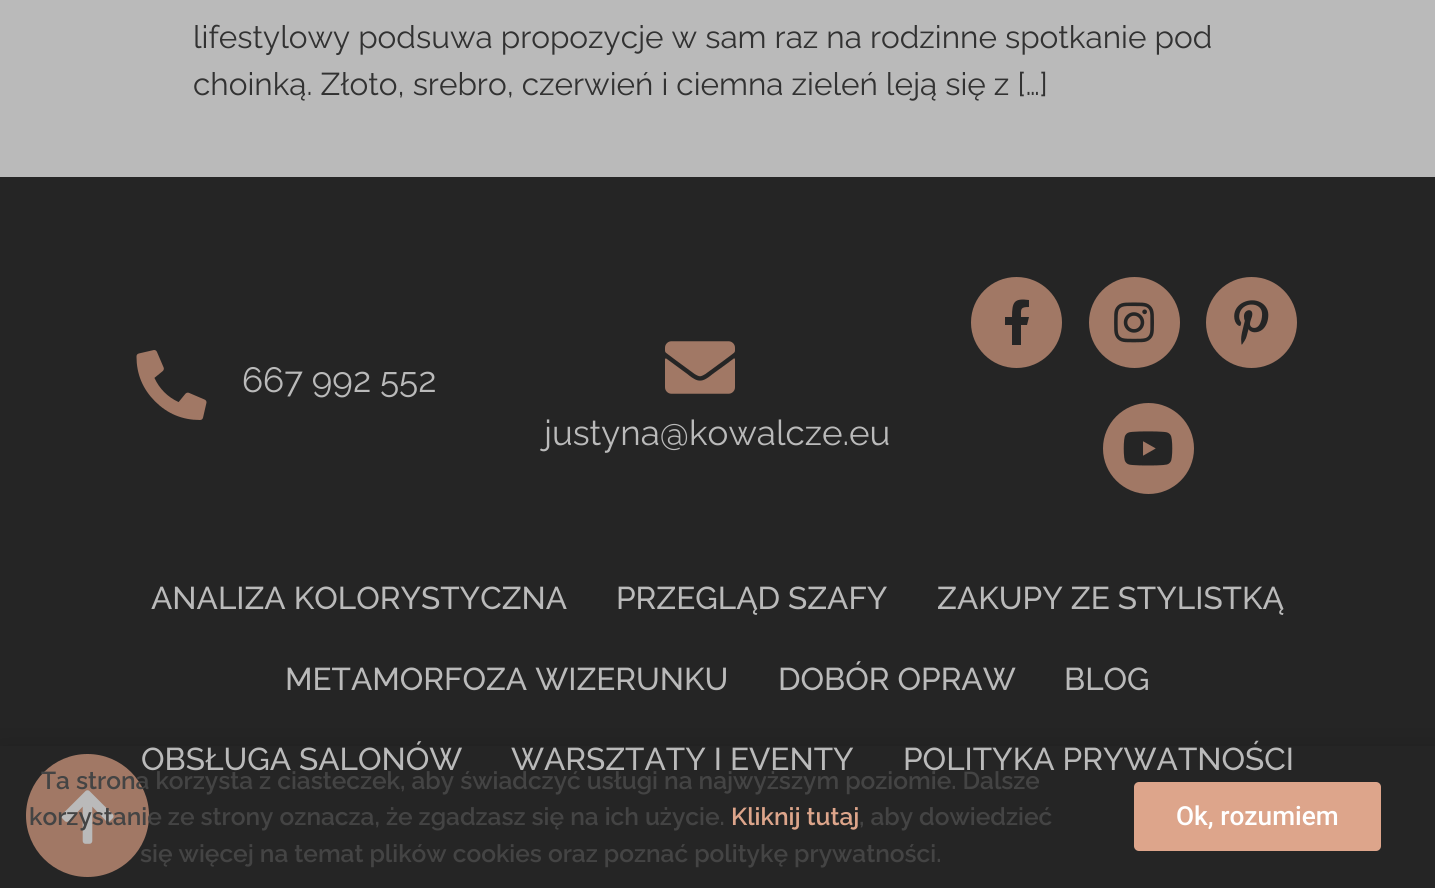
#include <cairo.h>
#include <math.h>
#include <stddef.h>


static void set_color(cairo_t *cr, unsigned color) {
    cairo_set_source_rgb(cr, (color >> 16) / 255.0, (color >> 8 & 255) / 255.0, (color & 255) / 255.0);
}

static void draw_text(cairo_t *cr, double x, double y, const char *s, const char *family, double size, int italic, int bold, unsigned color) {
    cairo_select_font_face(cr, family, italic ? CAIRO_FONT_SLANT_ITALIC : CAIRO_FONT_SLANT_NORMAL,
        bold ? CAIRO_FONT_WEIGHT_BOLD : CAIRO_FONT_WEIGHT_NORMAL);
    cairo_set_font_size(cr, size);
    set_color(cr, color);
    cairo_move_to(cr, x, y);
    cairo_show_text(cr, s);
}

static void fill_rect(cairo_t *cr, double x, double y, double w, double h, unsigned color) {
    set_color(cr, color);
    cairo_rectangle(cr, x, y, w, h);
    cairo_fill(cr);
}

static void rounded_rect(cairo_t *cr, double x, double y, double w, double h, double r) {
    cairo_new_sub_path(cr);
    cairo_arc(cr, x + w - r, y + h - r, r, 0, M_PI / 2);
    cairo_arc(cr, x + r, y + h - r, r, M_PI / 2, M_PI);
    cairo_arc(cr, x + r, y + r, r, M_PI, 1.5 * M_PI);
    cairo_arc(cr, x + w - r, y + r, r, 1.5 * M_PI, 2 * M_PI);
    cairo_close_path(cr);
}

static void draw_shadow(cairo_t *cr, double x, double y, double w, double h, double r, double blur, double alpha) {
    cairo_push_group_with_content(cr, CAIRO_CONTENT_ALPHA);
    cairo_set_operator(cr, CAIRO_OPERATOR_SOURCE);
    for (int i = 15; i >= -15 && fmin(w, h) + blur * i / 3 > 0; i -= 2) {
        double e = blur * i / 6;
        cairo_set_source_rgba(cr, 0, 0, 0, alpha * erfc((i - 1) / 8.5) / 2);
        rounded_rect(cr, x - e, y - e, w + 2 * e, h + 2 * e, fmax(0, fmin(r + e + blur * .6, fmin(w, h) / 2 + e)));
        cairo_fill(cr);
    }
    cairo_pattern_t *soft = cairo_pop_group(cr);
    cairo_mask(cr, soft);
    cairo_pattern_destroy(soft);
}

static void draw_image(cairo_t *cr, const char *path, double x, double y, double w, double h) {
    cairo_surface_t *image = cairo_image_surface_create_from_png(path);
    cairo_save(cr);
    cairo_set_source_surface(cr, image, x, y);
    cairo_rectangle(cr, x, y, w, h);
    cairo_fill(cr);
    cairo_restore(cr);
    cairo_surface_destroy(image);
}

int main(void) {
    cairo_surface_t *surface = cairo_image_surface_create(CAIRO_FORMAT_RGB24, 1435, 888);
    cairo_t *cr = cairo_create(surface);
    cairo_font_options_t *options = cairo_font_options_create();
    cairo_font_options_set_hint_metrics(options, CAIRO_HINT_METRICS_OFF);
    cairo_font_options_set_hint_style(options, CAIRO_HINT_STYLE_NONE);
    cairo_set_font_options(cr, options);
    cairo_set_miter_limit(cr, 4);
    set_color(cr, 0xBABABA);
    cairo_paint(cr);
    draw_text(cr, 193, 48, "lifestylowy podsuwa propozycje w sam raz na rodzinne spotkanie pod", "Raleway", 31.5, 0, 0, 0x323232);
    draw_text(cr, 193, 95, "choinką. Złoto, srebro, czerwień i ciemna zieleń leją się z […]", "Raleway", 31.5, 0, 0, 0x323232);
    fill_rect(cr, 0, 177, 1435, 711, 0x252525);
    draw_image(cr, "assets/img1.png", 136, 350, 71, 70);
    draw_text(cr, 242, 392, "667 992 552", "Raleway", 35, 0, 0, 0xBABABA);
    set_color(cr, 0xA17865);
    cairo_new_path(cr);
    cairo_arc(cr, 1016.5, 322.5, 45.5, 0, 2 * M_PI);
    cairo_fill(cr);
    set_color(cr, 0x252525);
    cairo_new_path(cr);
    cairo_move_to(cr, 1027, 325);
    cairo_line_to(cr, 1021, 325);
    cairo_line_to(cr, 1021, 345);
    cairo_line_to(cr, 1012, 345);
    cairo_line_to(cr, 1012, 325);
    cairo_line_to(cr, 1005, 325);
    cairo_line_to(cr, 1005, 317);
    cairo_line_to(cr, 1012, 317);
    cairo_curve_to(cr, 1012, 302, 1014, 298, 1029, 300);
    cairo_line_to(cr, 1029, 307);
    cairo_curve_to(cr, 1020, 307, 1021, 309, 1021, 317);
    cairo_line_to(cr, 1029, 317);
    cairo_close_path(cr);
    cairo_fill(cr);
    set_color(cr, 0xA17865);
    cairo_arc(cr, 1134.5, 322.5, 45.5, 0, 2 * M_PI);
    cairo_fill(cr);
    draw_image(cr, "assets/img2.png", 1114, 302, 40, 41);
    cairo_arc(cr, 1251.5, 322.5, 45.5, 0, 2 * M_PI);
    cairo_fill(cr);
    draw_image(cr, "assets/img3.png", 1234, 300, 35, 45);
    cairo_arc(cr, 1148.5, 448.5, 45.5, 0, 2 * M_PI);
    cairo_fill(cr);
    draw_image(cr, "assets/img4.png", 1123, 431, 50, 35);
    draw_image(cr, "assets/img5.png", 665, 341, 70, 53);
    draw_text(cr, 544, 445, "justyna@kowalcze.eu", "Raleway", 35, 0, 0, 0xBABABA);
    draw_text(cr, 141, 770, "OBSŁUGA SALONÓW", "Raleway Medium", 31.5, 0, 0, 0xBABABA);
    set_color(cr, 0xA17865);
    cairo_new_path(cr);
    cairo_arc(cr, 87.5, 815.5, 61.5, 0, 2 * M_PI);
    cairo_fill(cr);
    draw_image(cr, "assets/img6.png", 61, 790, 53, 54);
    draw_text(cr, 151, 609, "ANALIZA KOLORYSTYCZNA", "Raleway Medium", 31.5, 0, 0, 0xBABABA);
    draw_text(cr, 616, 609, "PRZEGLĄD SZAFY", "Raleway Medium", 31.5, 0, 0, 0xBABABA);
    draw_text(cr, 937, 609, "ZAKUPY ZE STYLISTKĄ", "Raleway Medium", 31.5, 0, 0, 0xBABABA);
    draw_text(cr, 285, 690, "METAMORFOZA WIZERUNKU", "Raleway Medium", 31.5, 0, 0, 0xBABABA);
    draw_text(cr, 778, 690, "DOBÓR OPRAW", "Raleway Medium", 31.5, 0, 0, 0xBABABA);
    draw_text(cr, 1064, 690, "BLOG", "Raleway Medium", 31.5, 0, 0, 0xBABABA);
    draw_text(cr, 511, 770, "WARSZTATY I EVENTY", "Raleway Medium", 31.5, 0, 0, 0xBABABA);
    draw_text(cr, 903, 770, "POLITYKA PRYWATNOŚCI", "Raleway Medium", 31.5, 0, 0, 0xBABABA);
    cairo_save(cr);
    cairo_rectangle(cr, 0, 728, 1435, 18);
    cairo_clip(cr);
    set_color(cr, 0x000000);
    draw_shadow(cr, -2, 754, 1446, 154, 0, 20, 0.2);
    cairo_restore(cr);
    draw_text(cr, 41, 789, "Ta strona korzysta z ciasteczek, aby świadczyć usługi na najwyższym poziomie. Dalsze", "Raleway SemiBold", 24.5, 0, 0, 0x444444);
    draw_text(cr, 29, 825, "korzystanie ze strony oznacza, że zgadzasz się na ich użycie.", "Raleway SemiBold", 24.5, 0, 0, 0x444444);
    draw_text(cr, 731, 825, "Kliknij tutaj", "Raleway SemiBold", 24.5, 0, 0, 0xDDA58B);
    draw_text(cr, 859, 825, ", aby dowiedzieć", "Raleway SemiBold", 24.5, 0, 0, 0x444444);
    draw_text(cr, 140, 862, "się więcej na temat plików cookies oraz poznać politykę prywatności.", "Raleway SemiBold", 24.5, 0, 0, 0x444444);
    set_color(cr, 0xDDA58B);
    rounded_rect(cr, 1134, 782, 247, 69, 5);
    cairo_fill(cr);
    draw_text(cr, 1176, 825, "Ok, rozumiem", "Roboto Medium", 26.25, 0, 0, 0xFFFFFF);
    cairo_surface_write_to_png(surface, "output.png");
    cairo_font_options_destroy(options);
    cairo_destroy(cr);
    cairo_surface_destroy(surface);
    return 0;
}
